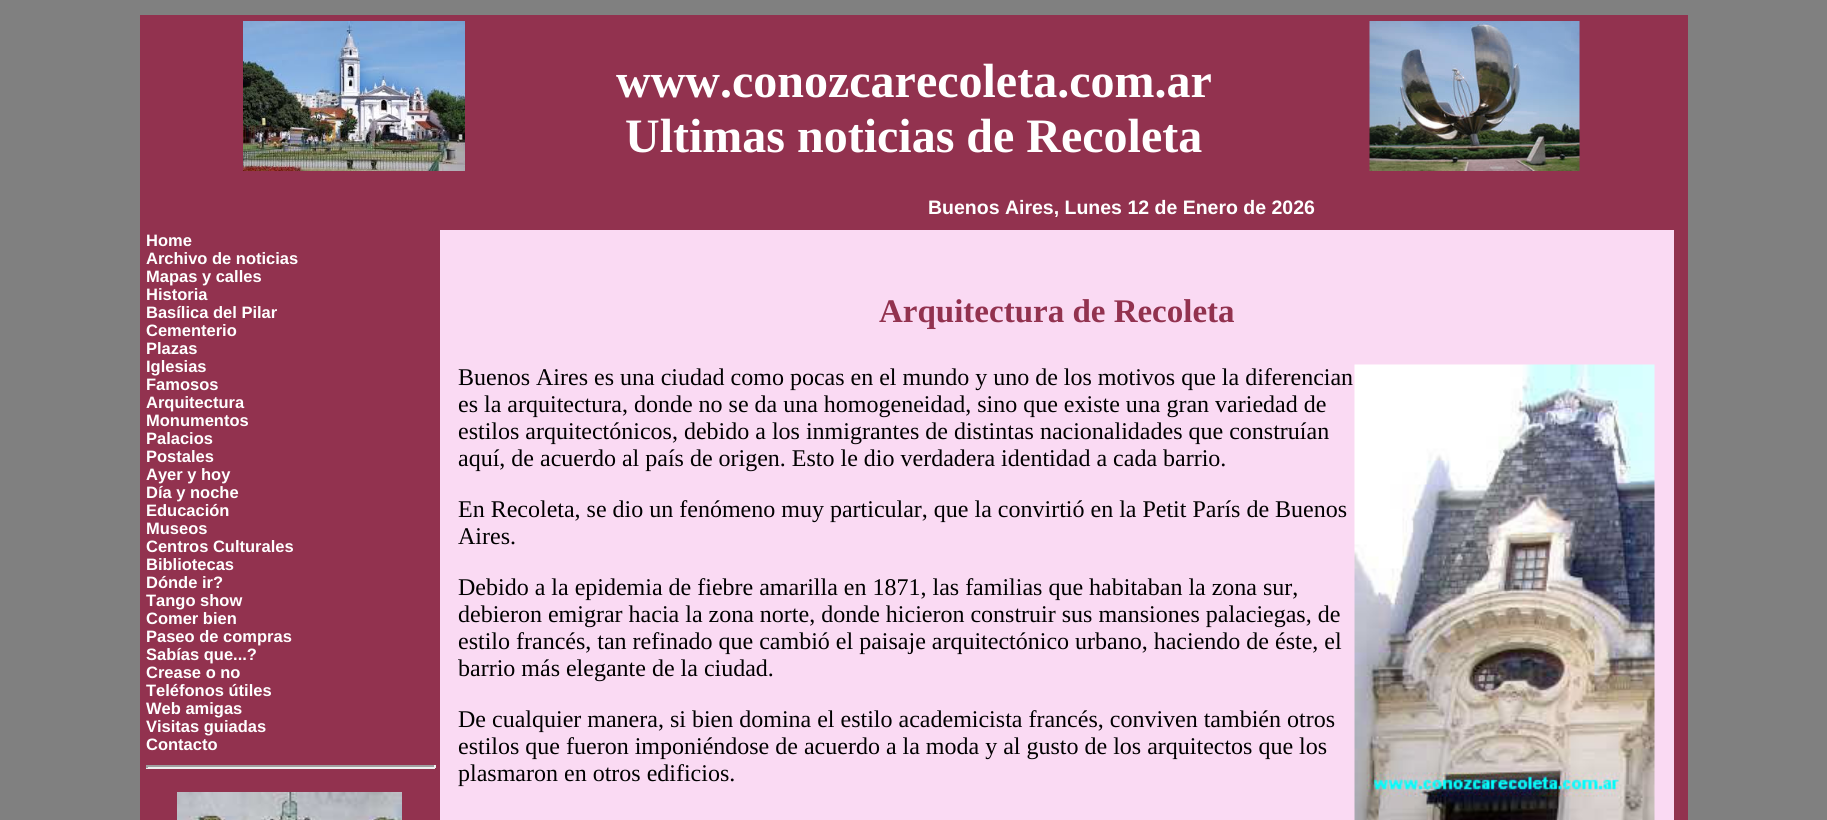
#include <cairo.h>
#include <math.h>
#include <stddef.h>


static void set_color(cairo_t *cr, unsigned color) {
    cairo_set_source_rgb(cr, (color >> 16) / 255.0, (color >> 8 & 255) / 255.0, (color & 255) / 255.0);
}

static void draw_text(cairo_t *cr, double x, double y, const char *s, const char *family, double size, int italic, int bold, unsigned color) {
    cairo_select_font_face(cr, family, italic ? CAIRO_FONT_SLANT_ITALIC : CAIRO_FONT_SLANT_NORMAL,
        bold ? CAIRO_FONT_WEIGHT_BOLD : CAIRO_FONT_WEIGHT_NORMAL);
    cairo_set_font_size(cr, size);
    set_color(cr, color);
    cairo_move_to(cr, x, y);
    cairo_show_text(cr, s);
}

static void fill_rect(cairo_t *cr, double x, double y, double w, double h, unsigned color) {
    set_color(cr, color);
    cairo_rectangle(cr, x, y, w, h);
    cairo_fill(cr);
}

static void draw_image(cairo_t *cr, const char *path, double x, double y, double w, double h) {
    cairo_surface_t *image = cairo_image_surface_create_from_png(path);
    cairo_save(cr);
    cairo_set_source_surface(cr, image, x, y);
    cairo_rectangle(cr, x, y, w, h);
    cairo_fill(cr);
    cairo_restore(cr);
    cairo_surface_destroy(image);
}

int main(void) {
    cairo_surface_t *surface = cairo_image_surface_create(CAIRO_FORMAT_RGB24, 1827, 820);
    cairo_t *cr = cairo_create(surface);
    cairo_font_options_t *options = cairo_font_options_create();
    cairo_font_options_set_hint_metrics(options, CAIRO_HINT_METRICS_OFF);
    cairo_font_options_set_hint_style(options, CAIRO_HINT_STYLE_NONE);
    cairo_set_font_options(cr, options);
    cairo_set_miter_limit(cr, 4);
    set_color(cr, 0x808080);
    cairo_paint(cr);
    fill_rect(cr, 140, 15, 1548, 805, 0x92324F);
    draw_image(cr, "assets/img1.png", 243, 21, 222, 150);
    draw_text(cr, 616, 97, "www.conozcarecoleta.com.ar", "Liberation Serif", 48, 0, 1, 0xFFFFFF);
    draw_text(cr, 625, 152, "Ultimas noticias de Recoleta", "Liberation Serif", 48, 0, 1, 0xFFFFFF);
    draw_image(cr, "assets/img2.png", 1369, 21, 211, 150);
    draw_text(cr, 928, 214, "Buenos Aires, Lunes 12 de Enero de 2026", "Liberation Sans", 19.5, 0, 1, 0xFFFFFF);
    draw_text(cr, 146, 246, "Home", "Liberation Sans", 16.5, 0, 1, 0xFFFFFF);
    draw_text(cr, 146, 264, "Archivo de noticias", "Liberation Sans", 16.5, 0, 1, 0xFFFFFF);
    draw_text(cr, 146, 282, "Mapas y calles", "Liberation Sans", 16.5, 0, 1, 0xFFFFFF);
    draw_text(cr, 146, 300, "Historia", "Liberation Sans", 16.5, 0, 1, 0xFFFFFF);
    draw_text(cr, 146, 318, "Basílica del Pilar", "Liberation Sans", 16.5, 0, 1, 0xFFFFFF);
    draw_text(cr, 146, 336, "Cementerio", "Liberation Sans", 16.5, 0, 1, 0xFFFFFF);
    draw_text(cr, 146, 354, "Plazas", "Liberation Sans", 16.5, 0, 1, 0xFFFFFF);
    draw_text(cr, 146, 372, "Iglesias", "Liberation Sans", 16.5, 0, 1, 0xFFFFFF);
    draw_text(cr, 146, 390, "Famosos", "Liberation Sans", 16.5, 0, 1, 0xFFFFFF);
    draw_text(cr, 146, 408, "Arquitectura", "Liberation Sans", 16.5, 0, 1, 0xFFFFFF);
    draw_text(cr, 146, 426, "Monumentos", "Liberation Sans", 16.5, 0, 1, 0xFFFFFF);
    draw_text(cr, 146, 444, "Palacios", "Liberation Sans", 16.5, 0, 1, 0xFFFFFF);
    draw_text(cr, 146, 462, "Postales", "Liberation Sans", 16.5, 0, 1, 0xFFFFFF);
    draw_text(cr, 146, 480, "Ayer y hoy", "Liberation Sans", 16.5, 0, 1, 0xFFFFFF);
    draw_text(cr, 146, 498, "Día y noche", "Liberation Sans", 16.5, 0, 1, 0xFFFFFF);
    draw_text(cr, 146, 516, "Educación", "Liberation Sans", 16.5, 0, 1, 0xFFFFFF);
    draw_text(cr, 146, 534, "Museos", "Liberation Sans", 16.5, 0, 1, 0xFFFFFF);
    draw_text(cr, 146, 552, "Centros Culturales", "Liberation Sans", 16.5, 0, 1, 0xFFFFFF);
    draw_text(cr, 146, 570, "Bibliotecas", "Liberation Sans", 16.5, 0, 1, 0xFFFFFF);
    draw_text(cr, 146, 588, "Dónde ir?", "Liberation Sans", 16.5, 0, 1, 0xFFFFFF);
    draw_text(cr, 146, 606, "Tango show", "Liberation Sans", 16.5, 0, 1, 0xFFFFFF);
    draw_text(cr, 146, 624, "Comer bien", "Liberation Sans", 16.5, 0, 1, 0xFFFFFF);
    draw_text(cr, 146, 642, "Paseo de compras", "Liberation Sans", 16.5, 0, 1, 0xFFFFFF);
    draw_text(cr, 146, 660, "Sabías que...?", "Liberation Sans", 16.5, 0, 1, 0xFFFFFF);
    draw_text(cr, 146, 678, "Crease o no", "Liberation Sans", 16.5, 0, 1, 0xFFFFFF);
    draw_text(cr, 146, 696, "Teléfonos útiles", "Liberation Sans", 16.5, 0, 1, 0xFFFFFF);
    draw_text(cr, 146, 714, "Web amigas", "Liberation Sans", 16.5, 0, 1, 0xFFFFFF);
    draw_text(cr, 146, 732, "Visitas guiadas", "Liberation Sans", 16.5, 0, 1, 0xFFFFFF);
    draw_text(cr, 146, 750, "Contacto", "Liberation Sans", 16.5, 0, 1, 0xFFFFFF);
    fill_rect(cr, 146, 765, 289, 2, 0x9F9F9F);
    fill_rect(cr, 434, 765, 2, 3, 0xEEEEEE);
    fill_rect(cr, 146, 767, 289, 2, 0xEEEEEE);
    fill_rect(cr, 146, 765, 2, 3, 0x9F9F9F);
    draw_image(cr, "assets/img3.png", 177, 792, 225, 28);
    fill_rect(cr, 440, 230, 1234, 590, 0xFADAF3);
    draw_text(cr, 879, 322, "Arquitectura de Recoleta", "Liberation Serif", 33, 0, 1, 0x92324F);
    draw_text(cr, 458, 385, "Buenos Aires es una ciudad como pocas en el mundo y uno de los motivos que la diferencian", "Liberation Serif", 24, 0, 0, 0x000000);
    draw_text(cr, 458, 412, "es la arquitectura, donde no se da una homogeneidad, sino que existe una gran variedad de", "Liberation Serif", 24, 0, 0, 0x000000);
    draw_text(cr, 458, 439, "estilos arquitectónicos, debido a los inmigrantes de distintas nacionalidades que construían", "Liberation Serif", 24, 0, 0, 0x000000);
    draw_text(cr, 458, 466, "aquí, de acuerdo al país de origen. Esto le dio verdadera identidad a cada barrio.", "Liberation Serif", 24, 0, 0, 0x000000);
    draw_image(cr, "assets/img4.png", 1354, 364, 301, 456);
    draw_text(cr, 458, 517, "En Recoleta, se dio un fenómeno muy particular, que la convirtió en la Petit París de Buenos", "Liberation Serif", 24, 0, 0, 0x000000);
    draw_text(cr, 458, 544, "Aires.", "Liberation Serif", 24, 0, 0, 0x000000);
    draw_text(cr, 458, 595, "Debido a la epidemia de fiebre amarilla en 1871, las familias que habitaban la zona sur,", "Liberation Serif", 24, 0, 0, 0x000000);
    draw_text(cr, 458, 622, "debieron emigrar hacia la zona norte, donde hicieron construir sus mansiones palaciegas, de", "Liberation Serif", 24, 0, 0, 0x000000);
    draw_text(cr, 458, 649, "estilo francés, tan refinado que cambió el paisaje arquitectónico urbano, haciendo de éste, el", "Liberation Serif", 24, 0, 0, 0x000000);
    draw_text(cr, 458, 676, "barrio más elegante de la ciudad.", "Liberation Serif", 24, 0, 0, 0x000000);
    draw_text(cr, 458, 727, "De cualquier manera, si bien domina el estilo academicista francés, conviven también otros", "Liberation Serif", 24, 0, 0, 0x000000);
    draw_text(cr, 458, 754, "estilos que fueron imponiéndose de acuerdo a la moda y al gusto de los arquitectos que los", "Liberation Serif", 24, 0, 0, 0x000000);
    draw_text(cr, 458, 781, "plasmaron en otros edificios.", "Liberation Serif", 24, 0, 0, 0x000000);
    cairo_surface_write_to_png(surface, "output.png");
    cairo_font_options_destroy(options);
    cairo_destroy(cr);
    cairo_surface_destroy(surface);
    return 0;
}
